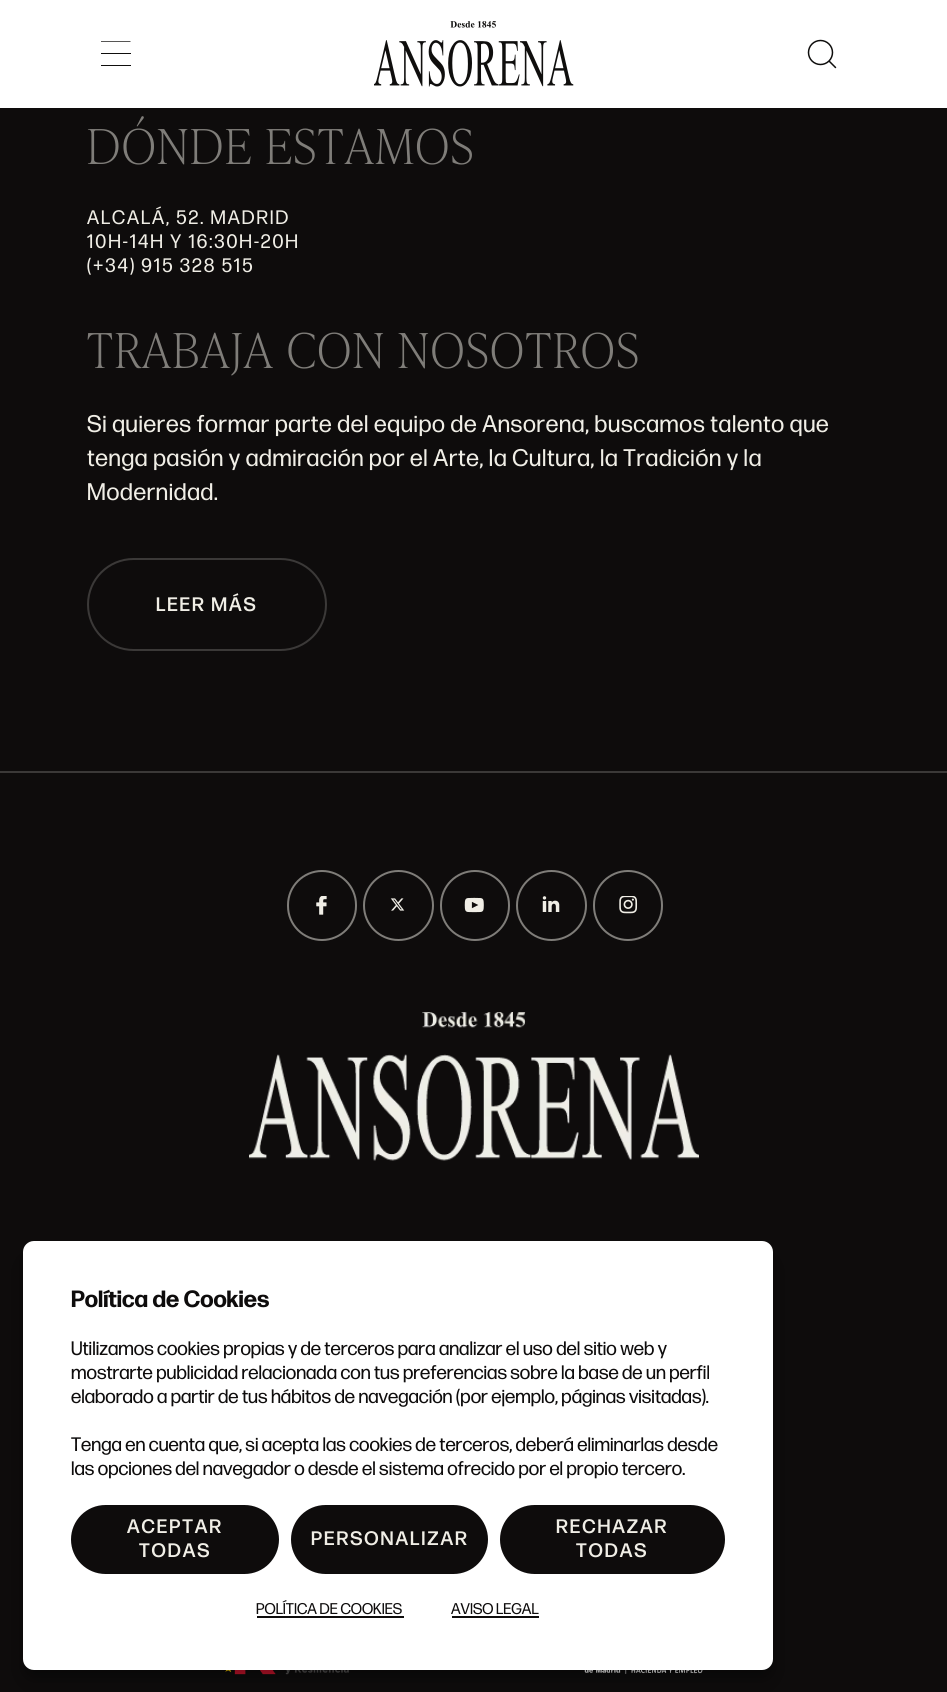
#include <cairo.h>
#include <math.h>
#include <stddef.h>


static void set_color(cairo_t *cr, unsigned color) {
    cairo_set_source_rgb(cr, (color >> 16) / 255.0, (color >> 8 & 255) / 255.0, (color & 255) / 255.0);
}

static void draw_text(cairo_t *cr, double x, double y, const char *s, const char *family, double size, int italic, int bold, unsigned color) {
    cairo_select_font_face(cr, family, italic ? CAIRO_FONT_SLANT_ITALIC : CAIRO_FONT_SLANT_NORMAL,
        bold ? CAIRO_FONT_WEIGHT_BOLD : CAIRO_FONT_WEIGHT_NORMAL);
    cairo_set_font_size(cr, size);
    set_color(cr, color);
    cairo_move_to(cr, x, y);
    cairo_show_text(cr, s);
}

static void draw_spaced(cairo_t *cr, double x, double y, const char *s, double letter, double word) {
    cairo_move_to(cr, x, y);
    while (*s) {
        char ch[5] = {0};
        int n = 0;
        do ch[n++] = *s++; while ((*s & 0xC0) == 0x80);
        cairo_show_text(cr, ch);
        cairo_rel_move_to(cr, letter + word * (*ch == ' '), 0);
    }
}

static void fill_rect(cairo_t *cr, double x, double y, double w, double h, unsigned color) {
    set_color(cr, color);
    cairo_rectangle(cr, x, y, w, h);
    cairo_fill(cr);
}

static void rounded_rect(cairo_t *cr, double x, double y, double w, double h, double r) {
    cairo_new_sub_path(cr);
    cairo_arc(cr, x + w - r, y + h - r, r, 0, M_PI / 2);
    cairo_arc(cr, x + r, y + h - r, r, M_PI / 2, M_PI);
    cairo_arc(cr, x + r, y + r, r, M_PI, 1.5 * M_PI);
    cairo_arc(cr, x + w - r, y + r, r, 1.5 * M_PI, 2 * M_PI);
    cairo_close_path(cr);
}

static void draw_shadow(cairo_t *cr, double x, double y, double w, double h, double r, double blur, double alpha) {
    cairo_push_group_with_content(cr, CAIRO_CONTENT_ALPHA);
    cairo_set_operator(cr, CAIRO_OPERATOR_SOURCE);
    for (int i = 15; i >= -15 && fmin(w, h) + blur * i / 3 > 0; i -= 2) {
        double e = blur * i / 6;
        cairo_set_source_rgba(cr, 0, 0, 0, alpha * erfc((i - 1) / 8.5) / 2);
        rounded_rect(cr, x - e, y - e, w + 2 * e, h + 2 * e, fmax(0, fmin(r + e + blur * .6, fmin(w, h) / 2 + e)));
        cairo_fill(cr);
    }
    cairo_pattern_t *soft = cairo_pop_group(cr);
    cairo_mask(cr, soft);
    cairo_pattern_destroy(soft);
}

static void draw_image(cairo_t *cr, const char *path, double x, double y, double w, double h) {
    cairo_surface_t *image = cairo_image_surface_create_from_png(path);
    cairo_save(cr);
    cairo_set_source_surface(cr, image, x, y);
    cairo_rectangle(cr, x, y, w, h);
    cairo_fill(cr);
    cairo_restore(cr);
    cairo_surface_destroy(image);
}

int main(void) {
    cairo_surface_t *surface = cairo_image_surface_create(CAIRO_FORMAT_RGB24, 947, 1692);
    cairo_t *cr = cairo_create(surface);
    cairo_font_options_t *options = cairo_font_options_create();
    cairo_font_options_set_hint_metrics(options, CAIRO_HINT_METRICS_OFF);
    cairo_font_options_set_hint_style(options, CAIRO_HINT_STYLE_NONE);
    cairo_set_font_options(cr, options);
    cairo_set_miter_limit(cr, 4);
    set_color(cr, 0x0E0C0C);
    cairo_paint(cr);
    fill_rect(cr, 0, 0, 947, 108, 0xFFFFFF);
    cairo_save(cr);
    cairo_rectangle(cr, 101, 41, 30, 27);
    cairo_clip(cr);
    cairo_new_path(cr);
    cairo_move_to(cr, 130.5, 41);
    cairo_line_to(cr, 100.5, 41);
    set_color(cr, 0x0F0E0D);
    cairo_set_line_width(cr, 1.4);
    cairo_stroke(cr);
    cairo_restore(cr);
    fill_rect(cr, 101, 53, 30, 1, 0x0F0E0D);
    fill_rect(cr, 101, 65, 30, 1, 0x0F0E0D);
    draw_image(cr, "assets/img1.png", 374, 21, 200, 66);
    draw_image(cr, "assets/img2.png", 807, 39, 30, 30);
    cairo_select_font_face(cr, "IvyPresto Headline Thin", CAIRO_FONT_SLANT_NORMAL, CAIRO_FONT_WEIGHT_NORMAL);
    cairo_set_font_size(cr, 48);
    set_color(cr, 0x7F7D79);
    draw_spaced(cr, 87, 164, "DÓNDE ESTAMOS", 1.95, 0);
    cairo_select_font_face(cr, "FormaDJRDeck", CAIRO_FONT_SLANT_NORMAL, CAIRO_FONT_WEIGHT_NORMAL);
    cairo_set_font_size(cr, 19.5);
    set_color(cr, 0xF0EEE6);
    draw_spaced(cr, 87, 224, "ALCALÁ, 52. MADRID", 1.95, 0);
    draw_spaced(cr, 87, 248, "10H-14H Y 16:30H-20H", 1.95, 0);
    draw_spaced(cr, 87, 272, "(+34) 915 328 515", 1.95, 0);
    cairo_select_font_face(cr, "IvyPresto Headline Thin", CAIRO_FONT_SLANT_NORMAL, CAIRO_FONT_WEIGHT_NORMAL);
    cairo_set_font_size(cr, 48);
    set_color(cr, 0x7F7D79);
    draw_spaced(cr, 87, 368, "TRABAJA CON NOSOTROS", 1.95, 0);
    cairo_select_font_face(cr, "FormaDJRDeck", CAIRO_FONT_SLANT_NORMAL, CAIRO_FONT_WEIGHT_NORMAL);
    cairo_set_font_size(cr, 24);
    set_color(cr, 0xF0EEE6);
    draw_spaced(cr, 87, 432, "Si quieres formar parte del equipo de Ansorena, buscamos talento que", 0.72, 0);
    draw_spaced(cr, 87, 466, "tenga pasión y admiración por el Arte, la Cultura, la Tradición y la", 0.72, 0);
    draw_spaced(cr, 87, 500, "Modernidad.", 0.72, 0);
    rounded_rect(cr, 88, 559, 238, 91, 45.5);
    set_color(cr, 0x3B3938);
    cairo_stroke(cr);
    cairo_select_font_face(cr, "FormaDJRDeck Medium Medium", CAIRO_FONT_SLANT_NORMAL, CAIRO_FONT_WEIGHT_NORMAL);
    cairo_set_font_size(cr, 19.5);
    set_color(cr, 0xF0EEE6);
    draw_spaced(cr, 156, 611, "LEER MÁS", 1.95, 0);
    fill_rect(cr, 0, 771, 947, 2, 0x3B3938);
    rounded_rect(cr, 288, 871, 68, 69, 34);
    set_color(cr, 0x7F7D79);
    cairo_stroke(cr);
    draw_image(cr, "assets/img3.png", 316, 896, 11, 19);
    cairo_arc(cr, 398.5, 905.5, 34.5, 0, 2 * M_PI);
    cairo_stroke(cr);
    draw_image(cr, "assets/img4.png", 390, 898, 15, 13);
    rounded_rect(cr, 441, 871, 68, 69, 34);
    cairo_stroke(cr);
    draw_image(cr, "assets/img5.png", 464, 897, 20, 16);
    cairo_arc(cr, 551.5, 905.5, 34.5, 0, 2 * M_PI);
    cairo_stroke(cr);
    draw_image(cr, "assets/img6.png", 542, 896, 18, 16);
    rounded_rect(cr, 594, 871, 68, 69, 34);
    cairo_stroke(cr);
    draw_image(cr, "assets/img7.png", 619, 896, 19, 18);
    draw_image(cr, "assets/img8.png", 249, 1012, 450, 149);
    draw_image(cr, "assets/img9.png", 225, 1670, 124, 5);
    draw_image(cr, "assets/img10.png", 584, 1670, 119, 4);
    set_color(cr, 0x000000);
    draw_shadow(cr, 23, 1250, 750, 429, 11, 4.5, 0.23);
    draw_shadow(cr, 23, 1256, 750, 429, 11, 15, 0.19);
    set_color(cr, 0xFFFFFF);
    rounded_rect(cr, 23, 1241, 750, 429, 11);
    cairo_fill(cr);
    draw_text(cr, 71, 1307, "Política de Cookies", "FormaDJRDeck", 23.5, 0, 1, 0x0E0C0C);
    draw_text(cr, 71, 1355, "Utilizamos cookies propias y de terceros para analizar el uso del sitio web y", "FormaDJRDeck", 19.5, 0, 0, 0x0E0C0C);
    draw_text(cr, 71, 1379, "mostrarte publicidad relacionada con tus preferencias sobre la base de un perfil", "FormaDJRDeck", 19.5, 0, 0, 0x0E0C0C);
    draw_text(cr, 71, 1403, "elaborado a partir de tus hábitos de navegación (por ejemplo, páginas visitadas).", "FormaDJRDeck", 19.5, 0, 0, 0x0E0C0C);
    draw_text(cr, 71, 1451, "Tenga en cuenta que, si acepta las cookies de terceros, deberá eliminarlas desde", "FormaDJRDeck", 19.5, 0, 0, 0x0E0C0C);
    draw_text(cr, 71, 1475, "las opciones del navegador o desde el sistema ofrecido por el propio tercero.", "FormaDJRDeck", 19.5, 0, 0, 0x0E0C0C);
    rounded_rect(cr, 72, 1506, 206, 67, 33.5);
    cairo_fill_preserve(cr);
    cairo_stroke(cr);
    cairo_select_font_face(cr, "FormaDJRDeck Medium Medium", CAIRO_FONT_SLANT_NORMAL, CAIRO_FONT_WEIGHT_NORMAL);
    set_color(cr, 0xF0EEE6);
    draw_spaced(cr, 127, 1533, "ACEPTAR", 1.95, 0);
    draw_spaced(cr, 139, 1557, "TODAS", 1.95, 0);
    set_color(cr, 0x0E0C0C);
    rounded_rect(cr, 292, 1506, 195, 67, 33.5);
    cairo_fill_preserve(cr);
    cairo_stroke(cr);
    set_color(cr, 0xF0EEE6);
    draw_spaced(cr, 311, 1545, "PERSONALIZAR", 1.95, 0);
    set_color(cr, 0x0E0C0C);
    rounded_rect(cr, 501, 1506, 223, 67, 33.5);
    cairo_fill_preserve(cr);
    cairo_stroke(cr);
    set_color(cr, 0xF0EEE6);
    draw_spaced(cr, 556, 1533, "RECHAZAR", 1.95, 0);
    draw_spaced(cr, 576, 1557, "TODAS", 1.95, 0);
    draw_text(cr, 256, 1614, "POLÍTICA DE COOKIES", "FormaDJRDeck", 15.5, 0, 0, 0x0E0C0C);
    fill_rect(cr, 257, 1616, 147, 2, 0x0E0C0C);
    draw_text(cr, 451, 1614, "AVISO LEGAL", "FormaDJRDeck", 15.5, 0, 0, 0x0E0C0C);
    fill_rect(cr, 452, 1616, 87, 2, 0x0E0C0C);
    cairo_surface_write_to_png(surface, "output.png");
    cairo_font_options_destroy(options);
    cairo_destroy(cr);
    cairo_surface_destroy(surface);
    return 0;
}
